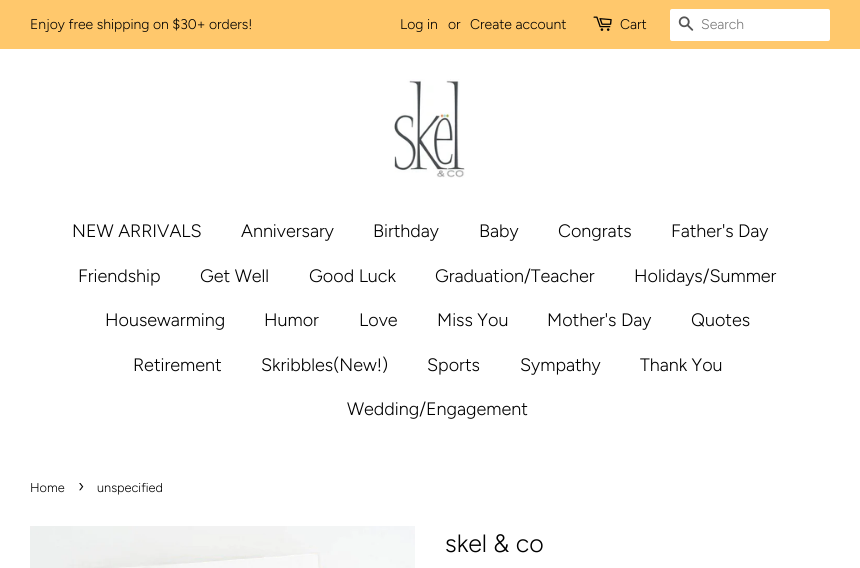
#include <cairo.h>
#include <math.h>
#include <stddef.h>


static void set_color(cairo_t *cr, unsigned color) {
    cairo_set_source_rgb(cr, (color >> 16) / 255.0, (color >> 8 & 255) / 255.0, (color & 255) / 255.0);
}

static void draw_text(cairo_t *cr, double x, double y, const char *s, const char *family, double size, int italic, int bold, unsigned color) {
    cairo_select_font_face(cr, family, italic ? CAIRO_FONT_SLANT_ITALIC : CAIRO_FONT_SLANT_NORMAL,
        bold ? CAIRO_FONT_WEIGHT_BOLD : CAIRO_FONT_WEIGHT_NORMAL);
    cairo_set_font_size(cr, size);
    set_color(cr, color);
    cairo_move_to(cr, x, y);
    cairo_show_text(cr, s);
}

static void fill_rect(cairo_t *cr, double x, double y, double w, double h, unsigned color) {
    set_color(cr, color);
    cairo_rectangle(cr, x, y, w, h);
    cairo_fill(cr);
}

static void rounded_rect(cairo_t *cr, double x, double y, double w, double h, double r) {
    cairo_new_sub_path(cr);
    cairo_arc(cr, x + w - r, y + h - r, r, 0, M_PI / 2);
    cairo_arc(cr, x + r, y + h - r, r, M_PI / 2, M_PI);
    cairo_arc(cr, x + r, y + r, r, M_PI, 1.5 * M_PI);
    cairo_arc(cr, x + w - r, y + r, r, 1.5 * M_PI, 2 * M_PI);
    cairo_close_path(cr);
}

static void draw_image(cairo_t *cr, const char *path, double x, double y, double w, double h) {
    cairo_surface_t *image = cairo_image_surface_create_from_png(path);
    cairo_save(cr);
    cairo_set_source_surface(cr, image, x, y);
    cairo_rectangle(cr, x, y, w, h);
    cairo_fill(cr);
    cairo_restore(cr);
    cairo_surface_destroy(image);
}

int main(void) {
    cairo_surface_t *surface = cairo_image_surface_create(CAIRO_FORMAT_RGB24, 860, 568);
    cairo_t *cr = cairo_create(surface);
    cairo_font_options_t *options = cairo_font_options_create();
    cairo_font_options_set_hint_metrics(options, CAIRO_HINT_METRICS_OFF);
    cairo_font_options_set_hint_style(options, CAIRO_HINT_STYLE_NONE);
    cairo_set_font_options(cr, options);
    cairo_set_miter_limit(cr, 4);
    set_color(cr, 0xFFFFFF);
    cairo_paint(cr);
    fill_rect(cr, 0, 0, 860, 49, 0xFFC86C);
    draw_text(cr, 30, 29, "Enjoy free shipping on $30+ orders!", "Figtree Light", 14, 0, 0, 0x000000);
    draw_text(cr, 400, 29, "Log in", "Figtree Light", 14, 0, 0, 0x000000);
    draw_text(cr, 448, 29, "or", "Figtree Light", 14, 0, 0, 0x000000);
    draw_text(cr, 470, 29, "Create account", "Figtree Light", 14, 0, 0, 0x000000);
    draw_image(cr, "assets/img1.png", 593, 16, 19, 15);
    draw_text(cr, 620, 29, "Cart", "Figtree Light", 14, 0, 0, 0x000000);
    set_color(cr, 0xFFFFFF);
    rounded_rect(cr, 670, 9, 160, 32, 2);
    cairo_fill(cr);
    draw_image(cr, "assets/img2.png", 678, 16, 16, 15);
    draw_text(cr, 701, 29, "Search", "Figtree Light", 14, 0, 0, 0x757575);
    draw_image(cr, "assets/img3.png", 394, 79, 71, 99);
    draw_text(cr, 72, 237, "NEW ARRIVALS", "Figtree Light", 18, 0, 0, 0x000000);
    draw_text(cr, 241, 237, "Anniversary", "Figtree Light", 18, 0, 0, 0x000000);
    draw_text(cr, 373, 237, "Birthday", "Figtree Light", 18, 0, 0, 0x000000);
    draw_text(cr, 479, 237, "Baby", "Figtree Light", 18, 0, 0, 0x000000);
    draw_text(cr, 558, 237, "Congrats", "Figtree Light", 18, 0, 0, 0x000000);
    draw_text(cr, 671, 237, "Father's Day", "Figtree Light", 18, 0, 0, 0x000000);
    draw_text(cr, 78, 282, "Friendship", "Figtree Light", 18, 0, 0, 0x000000);
    draw_text(cr, 200, 282, "Get Well", "Figtree Light", 18, 0, 0, 0x000000);
    draw_text(cr, 309, 282, "Good Luck", "Figtree Light", 18, 0, 0, 0x000000);
    draw_text(cr, 435, 282, "Graduation/Teacher", "Figtree Light", 18, 0, 0, 0x000000);
    draw_text(cr, 634, 282, "Holidays/Summer", "Figtree Light", 18, 0, 0, 0x000000);
    draw_text(cr, 105, 326, "Housewarming", "Figtree Light", 18, 0, 0, 0x000000);
    draw_text(cr, 264, 326, "Humor", "Figtree Light", 18, 0, 0, 0x000000);
    draw_text(cr, 359, 326, "Love", "Figtree Light", 18, 0, 0, 0x000000);
    draw_text(cr, 437, 326, "Miss You", "Figtree Light", 18, 0, 0, 0x000000);
    draw_text(cr, 547, 326, "Mother's Day", "Figtree Light", 18, 0, 0, 0x000000);
    draw_text(cr, 691, 326, "Quotes", "Figtree Light", 18, 0, 0, 0x000000);
    draw_text(cr, 133, 371, "Retirement", "Figtree Light", 18, 0, 0, 0x000000);
    draw_text(cr, 261, 371, "Skribbles(New!)", "Figtree Light", 18, 0, 0, 0x000000);
    draw_text(cr, 427, 371, "Sports", "Figtree Light", 18, 0, 0, 0x000000);
    draw_text(cr, 520, 371, "Sympathy", "Figtree Light", 18, 0, 0, 0x000000);
    draw_text(cr, 640, 371, "Thank You", "Figtree Light", 18, 0, 0, 0x000000);
    draw_text(cr, 347, 415, "Wedding/Engagement", "Figtree Light", 18, 0, 0, 0x000000);
    draw_text(cr, 30, 492, "Home", "Figtree Light", 12.75, 0, 0, 0x000000);
    draw_text(cr, 78, 492, "›", "Figtree Light", 18, 0, 0, 0x000000);
    draw_text(cr, 97, 492, "unspecified", "Figtree Light", 12.75, 0, 0, 0x000000);
    draw_image(cr, "assets/img4.png", 30, 526, 385, 42);
    draw_text(cr, 445, 552, "skel & co", "Figtree Light", 25, 0, 0, 0x000000);
    cairo_surface_write_to_png(surface, "output.png");
    cairo_font_options_destroy(options);
    cairo_destroy(cr);
    cairo_surface_destroy(surface);
    return 0;
}
